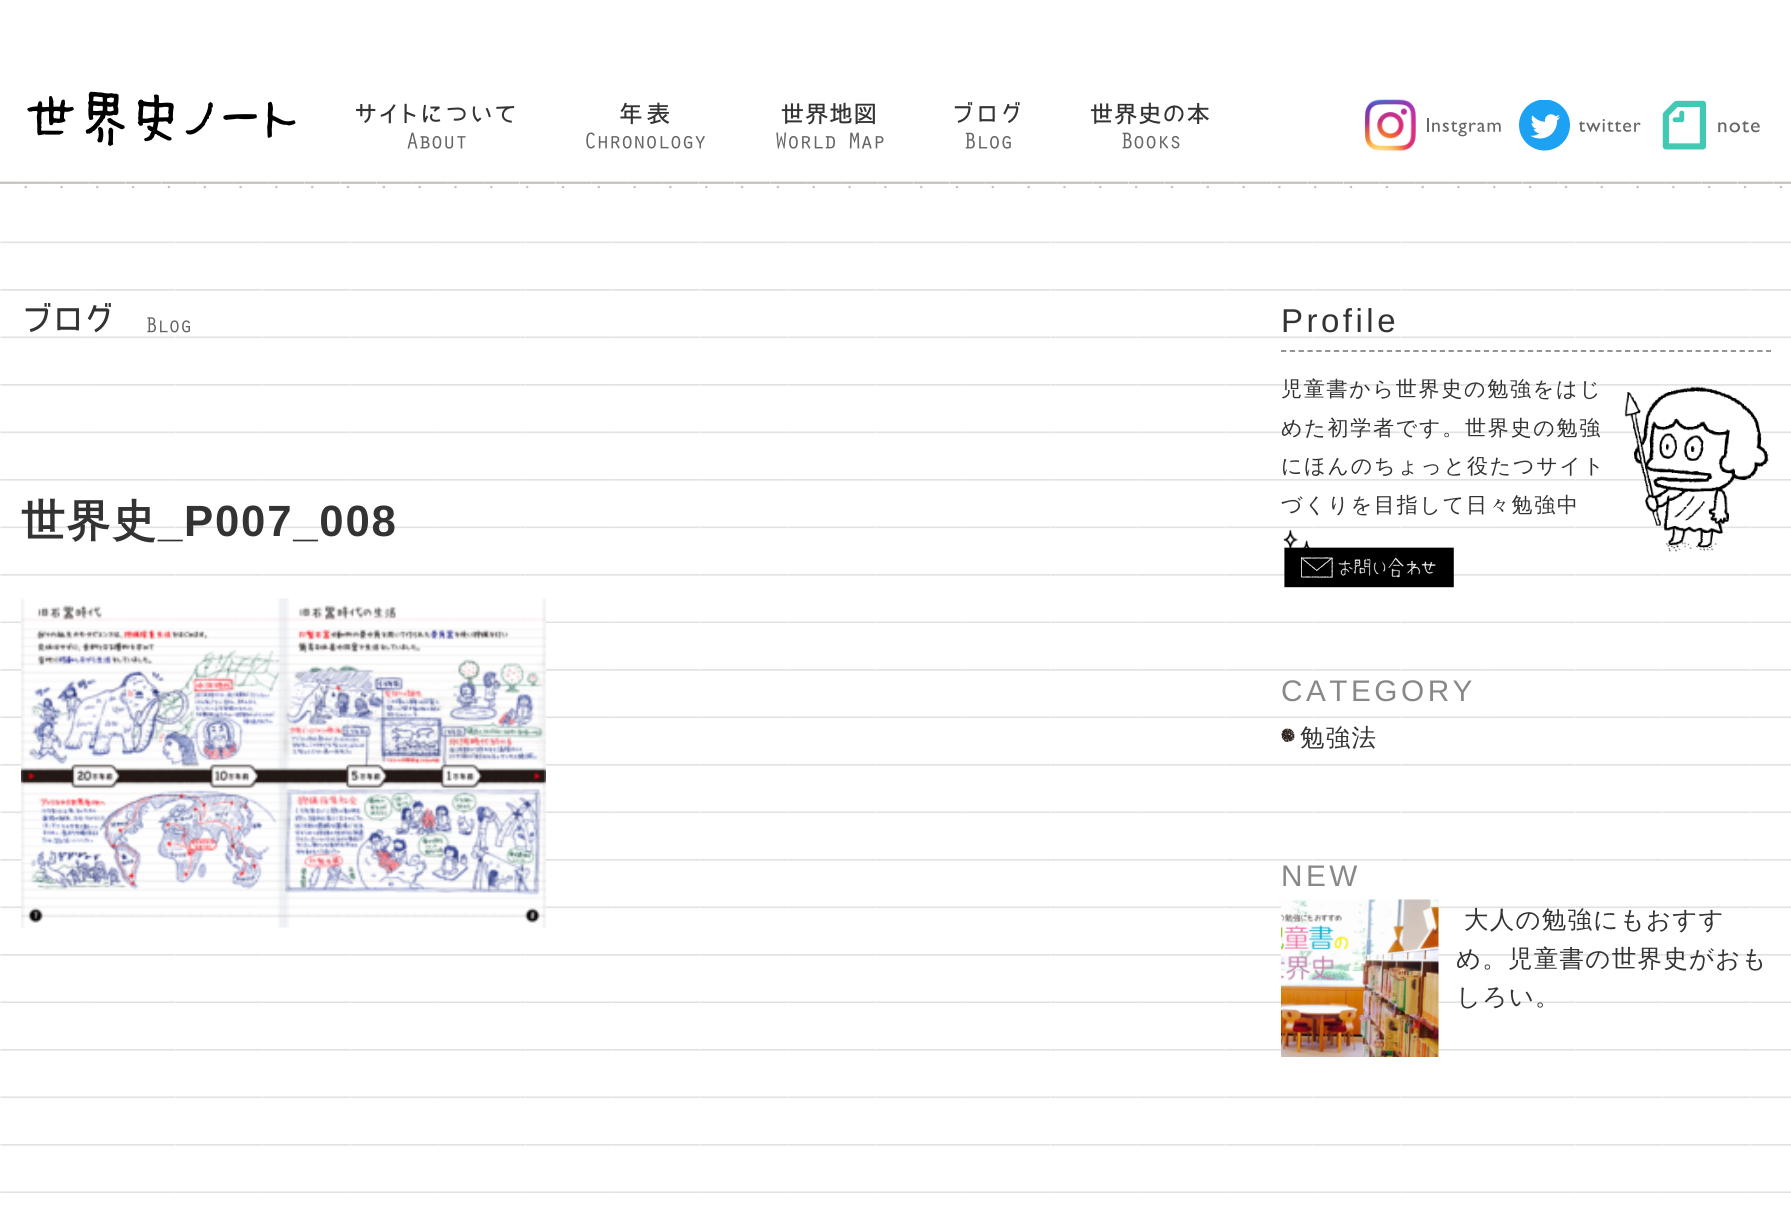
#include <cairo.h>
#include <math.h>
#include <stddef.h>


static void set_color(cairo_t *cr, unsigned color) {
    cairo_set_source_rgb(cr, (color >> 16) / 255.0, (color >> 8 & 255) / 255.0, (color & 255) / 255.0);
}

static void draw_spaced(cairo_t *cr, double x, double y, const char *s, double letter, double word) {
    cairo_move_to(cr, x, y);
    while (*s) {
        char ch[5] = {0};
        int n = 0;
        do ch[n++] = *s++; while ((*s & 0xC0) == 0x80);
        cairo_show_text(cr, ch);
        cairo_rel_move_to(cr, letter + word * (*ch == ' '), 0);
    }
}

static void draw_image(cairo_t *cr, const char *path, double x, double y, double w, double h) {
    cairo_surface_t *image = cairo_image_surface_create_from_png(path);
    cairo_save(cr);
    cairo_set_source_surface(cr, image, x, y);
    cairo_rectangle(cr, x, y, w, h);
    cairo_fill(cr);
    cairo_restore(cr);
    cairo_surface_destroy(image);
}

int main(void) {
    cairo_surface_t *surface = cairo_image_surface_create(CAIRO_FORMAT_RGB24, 1791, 1205);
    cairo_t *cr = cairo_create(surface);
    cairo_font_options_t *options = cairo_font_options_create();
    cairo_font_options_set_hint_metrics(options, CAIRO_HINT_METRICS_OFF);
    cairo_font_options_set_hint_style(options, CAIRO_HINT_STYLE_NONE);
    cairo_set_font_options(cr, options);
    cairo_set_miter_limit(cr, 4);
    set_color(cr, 0xFFFFFF);
    cairo_paint(cr);
    draw_image(cr, "assets/img1.png", 27, 91, 269, 55);
    draw_image(cr, "assets/img2.png", 356, 103, 159, 46);
    draw_image(cr, "assets/img3.png", 586, 102, 119, 47);
    draw_image(cr, "assets/img4.png", 776, 102, 108, 47);
    draw_image(cr, "assets/img5.png", 954, 102, 66, 47);
    draw_image(cr, "assets/img6.png", 1090, 102, 119, 47);
    draw_image(cr, "assets/img7.png", 1365, 99, 51, 52);
    draw_image(cr, "assets/img8.png", 1427, 118, 74, 19);
    draw_image(cr, "assets/img9.png", 1519, 100, 51, 51);
    draw_image(cr, "assets/img10.png", 1579, 119, 62, 13);
    draw_image(cr, "assets/img11.png", 1662, 100, 44, 50);
    draw_image(cr, "assets/img12.png", 1718, 120, 42, 13);
    draw_image(cr, "assets/img13.png", 0, 181, 1791, 8);
    draw_image(cr, "assets/img14.png", 0, 241, 1791, 952);
    draw_image(cr, "assets/img15.png", 25, 303, 165, 30);
    cairo_select_font_face(cr, "WenQuanYi Zen Hei", CAIRO_FONT_SLANT_NORMAL, CAIRO_FONT_WEIGHT_BOLD);
    cairo_set_font_size(cr, 43.75);
    set_color(cr, 0x333333);
    draw_spaced(cr, 21, 536, "世界史", 1.75, 0);
    cairo_select_font_face(cr, "Liberation Sans", CAIRO_FONT_SLANT_NORMAL, CAIRO_FONT_WEIGHT_BOLD);
    draw_spaced(cr, 158, 536, "_P007_008", 1.75, 0);
    draw_image(cr, "assets/img16.png", 21, 598, 525, 330);
    cairo_new_path(cr);
    cairo_move_to(cr, 1281, 351);
    cairo_line_to(cr, 1771, 351);
    set_color(cr, 0x888888);
    cairo_set_line_width(cr, 1.8);
    cairo_set_dash(cr, (double[]){5.25, 3.57}, 2, 0);
    cairo_stroke(cr);
    cairo_select_font_face(cr, "Liberation Sans", CAIRO_FONT_SLANT_NORMAL, CAIRO_FONT_WEIGHT_NORMAL);
    cairo_set_font_size(cr, 33);
    set_color(cr, 0x333333);
    draw_spaced(cr, 1281, 332, "Profile", 3.5, 0);
    cairo_select_font_face(cr, "WenQuanYi Zen Hei Medium", CAIRO_FONT_SLANT_NORMAL, CAIRO_FONT_WEIGHT_NORMAL);
    cairo_set_font_size(cr, 21);
    draw_spaced(cr, 1281, 396, "児童書から世界史の勉強をはじ", 1.75, 0);
    draw_spaced(cr, 1281, 435, "めた初学者です。世界史の勉強", 1.75, 0);
    draw_spaced(cr, 1281, 473, "にほんのちょっと役たつサイト", 1.75, 0);
    draw_spaced(cr, 1281, 512, "づくりを目指して日々勉強中", 1.75, 0);
    draw_image(cr, "assets/img17.png", 1283, 530, 28, 18);
    draw_image(cr, "assets/img18.png", 1624, 386, 145, 166);
    draw_image(cr, "assets/img19.png", 1284, 547, 170, 41);
    cairo_select_font_face(cr, "Liberation Sans", CAIRO_FONT_SLANT_NORMAL, CAIRO_FONT_WEIGHT_NORMAL);
    cairo_set_font_size(cr, 29.75);
    set_color(cr, 0x888888);
    draw_spaced(cr, 1281, 701, "CATEGORY", 3.5, 0);
    draw_image(cr, "assets/img20.png", 1281, 728, 14, 14);
    cairo_select_font_face(cr, "WenQuanYi Zen Hei Medium", CAIRO_FONT_SLANT_NORMAL, CAIRO_FONT_WEIGHT_NORMAL);
    cairo_set_font_size(cr, 24.5);
    set_color(cr, 0x333333);
    draw_spaced(cr, 1300, 746, "勉強法", 1.25, 0);
    cairo_select_font_face(cr, "Liberation Sans", CAIRO_FONT_SLANT_NORMAL, CAIRO_FONT_WEIGHT_NORMAL);
    cairo_set_font_size(cr, 29.75);
    set_color(cr, 0x888888);
    draw_spaced(cr, 1281, 886, "NEW", 3.5, 0);
    draw_image(cr, "assets/img21.png", 1281, 899, 158, 158);
    cairo_select_font_face(cr, "WenQuanYi Zen Hei Medium", CAIRO_FONT_SLANT_NORMAL, CAIRO_FONT_WEIGHT_NORMAL);
    cairo_set_font_size(cr, 24.5);
    set_color(cr, 0x333333);
    draw_spaced(cr, 1464, 928, "大人の勉強にもおすす", 1.25, 0);
    draw_spaced(cr, 1456, 967, "め。児童書の世界史がおも", 1.25, 0);
    draw_spaced(cr, 1456, 1005, "しろい。", 1.25, 0);
    cairo_surface_write_to_png(surface, "output.png");
    cairo_font_options_destroy(options);
    cairo_destroy(cr);
    cairo_surface_destroy(surface);
    return 0;
}
